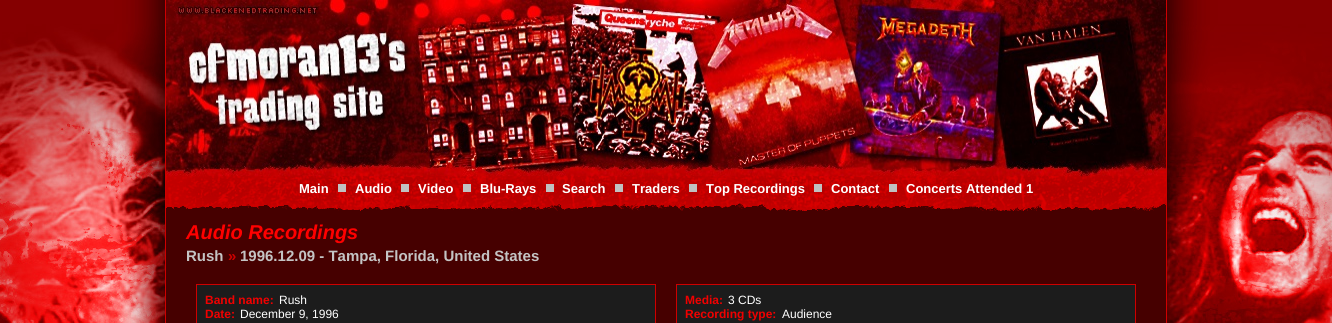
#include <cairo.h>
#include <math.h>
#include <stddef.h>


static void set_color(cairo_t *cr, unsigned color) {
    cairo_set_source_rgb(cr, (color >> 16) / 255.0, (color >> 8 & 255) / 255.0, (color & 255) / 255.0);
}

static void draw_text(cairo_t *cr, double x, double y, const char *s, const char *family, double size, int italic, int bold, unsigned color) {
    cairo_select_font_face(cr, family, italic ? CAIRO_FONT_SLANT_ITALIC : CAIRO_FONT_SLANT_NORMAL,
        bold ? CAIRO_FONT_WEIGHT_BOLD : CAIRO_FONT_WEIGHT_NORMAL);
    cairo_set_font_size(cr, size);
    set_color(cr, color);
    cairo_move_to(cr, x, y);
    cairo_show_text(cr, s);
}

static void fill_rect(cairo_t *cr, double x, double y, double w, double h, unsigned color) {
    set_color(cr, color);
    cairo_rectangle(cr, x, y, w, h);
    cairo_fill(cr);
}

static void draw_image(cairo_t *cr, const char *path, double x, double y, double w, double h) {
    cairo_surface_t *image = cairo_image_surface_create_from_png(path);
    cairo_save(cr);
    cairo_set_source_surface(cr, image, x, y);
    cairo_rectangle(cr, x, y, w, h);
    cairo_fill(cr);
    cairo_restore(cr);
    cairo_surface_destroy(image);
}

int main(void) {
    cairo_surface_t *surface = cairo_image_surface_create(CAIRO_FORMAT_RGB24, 1332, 323);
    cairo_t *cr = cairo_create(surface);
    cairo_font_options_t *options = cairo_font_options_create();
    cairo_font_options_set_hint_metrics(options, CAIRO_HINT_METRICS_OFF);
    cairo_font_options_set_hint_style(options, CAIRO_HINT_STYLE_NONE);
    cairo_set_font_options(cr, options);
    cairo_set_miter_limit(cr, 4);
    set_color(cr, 0xFFFFFF);
    cairo_paint(cr);
    draw_image(cr, "assets/img1.png", 0, 0, 1332, 323);
    fill_rect(cr, 166, 204, 1000, 119, 0x460000);
    fill_rect(cr, 1166, 142, 1, 181, 0xCF0000);
    fill_rect(cr, 165, 107, 1, 216, 0xCF0000);
    draw_image(cr, "assets/img2.png", 166, 0, 1000, 176);
    draw_image(cr, "assets/img3.png", 166, 176, 1000, 35);
    draw_text(cr, 299, 193, "Main", "Liberation Sans", 13, 0, 1, 0xFFFFFF);
    fill_rect(cr, 338, 184, 8, 8, 0xC1C1C1);
    draw_text(cr, 355, 193, "Audio", "Liberation Sans", 13, 0, 1, 0xFFFFFF);
    fill_rect(cr, 401, 184, 8, 8, 0xC1C1C1);
    draw_text(cr, 418, 193, "Video", "Liberation Sans", 13, 0, 1, 0xFFFFFF);
    fill_rect(cr, 463, 184, 8, 8, 0xC1C1C1);
    draw_text(cr, 480, 193, "Blu-Rays", "Liberation Sans", 13, 0, 1, 0xFFFFFF);
    fill_rect(cr, 546, 184, 8, 8, 0xC1C1C1);
    draw_text(cr, 562, 193, "Search", "Liberation Sans", 13, 0, 1, 0xFFFFFF);
    fill_rect(cr, 615, 184, 8, 8, 0xC1C1C1);
    draw_text(cr, 632, 193, "Traders", "Liberation Sans", 13, 0, 1, 0xFFFFFF);
    fill_rect(cr, 689, 184, 8, 8, 0xC1C1C1);
    draw_text(cr, 706, 193, "Top Recordings", "Liberation Sans", 13, 0, 1, 0xFFFFFF);
    fill_rect(cr, 814, 184, 8, 8, 0xC1C1C1);
    draw_text(cr, 831, 193, "Contact", "Liberation Sans", 13, 0, 1, 0xFFFFFF);
    fill_rect(cr, 889, 184, 8, 8, 0xC1C1C1);
    draw_text(cr, 906, 193, "Concerts Attended 1", "Liberation Sans", 13, 0, 1, 0xFFFFFF);
    draw_text(cr, 186, 239, "Audio Recordings", "Liberation Sans", 20, 1, 1, 0xFF0000);
    draw_text(cr, 186, 261, "Rush", "Liberation Sans", 15, 0, 1, 0xC4C4C4);
    draw_text(cr, 228, 261, "»", "Liberation Sans", 15, 0, 1, 0xCF0000);
    draw_text(cr, 240, 261, "1996.12.09 - Tampa, Florida, United States", "Liberation Sans", 15, 0, 1, 0xC4C4C4);
    set_color(cr, 0x1C1C1C);
    cairo_rectangle(cr, 196.5, 284.5, 459, 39);
    cairo_fill_preserve(cr);
    set_color(cr, 0xCF0000);
    cairo_set_line_width(cr, 1);
    cairo_stroke(cr);
    draw_text(cr, 205, 304, "Band name:", "Liberation Sans", 12, 0, 1, 0xF10000);
    draw_text(cr, 279, 304, "Rush", "Liberation Sans", 12, 0, 0, 0xFFFFFF);
    draw_text(cr, 205, 318, "Date:", "Liberation Sans", 12, 0, 1, 0xF10000);
    draw_text(cr, 240, 318, "December 9, 1996", "Liberation Sans", 12, 0, 0, 0xFFFFFF);
    set_color(cr, 0x1C1C1C);
    cairo_rectangle(cr, 676.5, 284.5, 459, 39);
    cairo_fill_preserve(cr);
    set_color(cr, 0xCF0000);
    cairo_stroke(cr);
    draw_text(cr, 685, 304, "Media:", "Liberation Sans", 12, 0, 1, 0xF10000);
    draw_text(cr, 728, 304, "3 CDs", "Liberation Sans", 12, 0, 0, 0xFFFFFF);
    draw_text(cr, 685, 318, "Recording type:", "Liberation Sans", 12, 0, 1, 0xF10000);
    draw_text(cr, 782, 318, "Audience", "Liberation Sans", 12, 0, 0, 0xFFFFFF);
    cairo_surface_write_to_png(surface, "output.png");
    cairo_font_options_destroy(options);
    cairo_destroy(cr);
    cairo_surface_destroy(surface);
    return 0;
}
